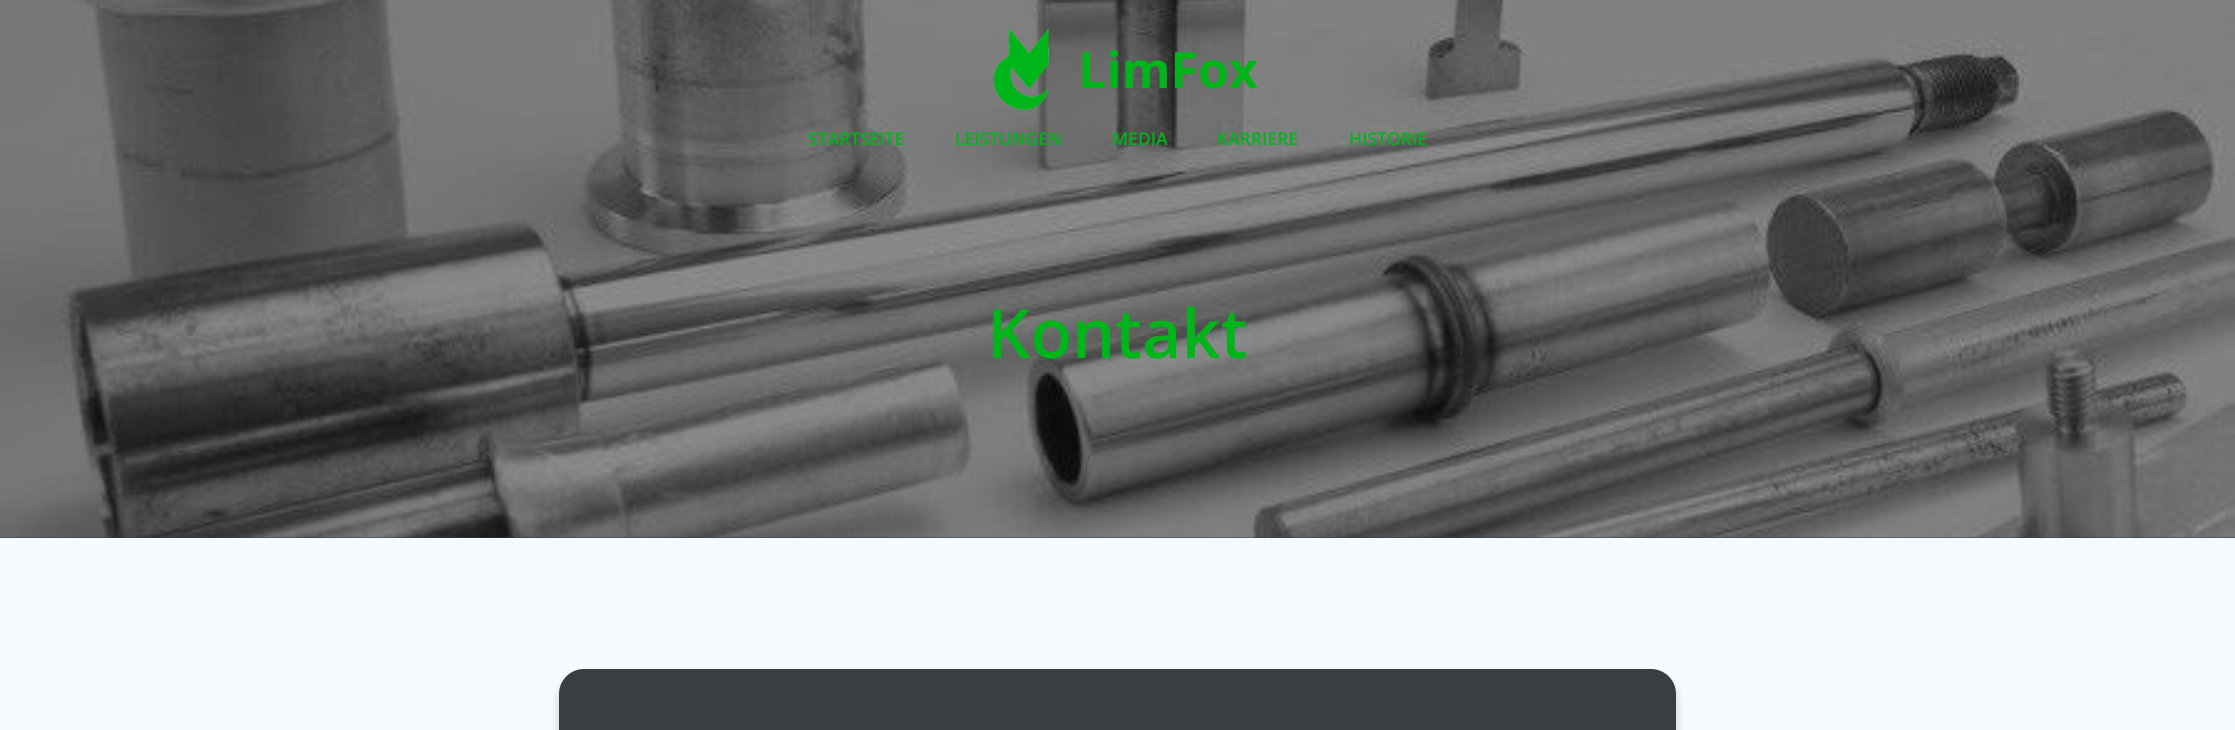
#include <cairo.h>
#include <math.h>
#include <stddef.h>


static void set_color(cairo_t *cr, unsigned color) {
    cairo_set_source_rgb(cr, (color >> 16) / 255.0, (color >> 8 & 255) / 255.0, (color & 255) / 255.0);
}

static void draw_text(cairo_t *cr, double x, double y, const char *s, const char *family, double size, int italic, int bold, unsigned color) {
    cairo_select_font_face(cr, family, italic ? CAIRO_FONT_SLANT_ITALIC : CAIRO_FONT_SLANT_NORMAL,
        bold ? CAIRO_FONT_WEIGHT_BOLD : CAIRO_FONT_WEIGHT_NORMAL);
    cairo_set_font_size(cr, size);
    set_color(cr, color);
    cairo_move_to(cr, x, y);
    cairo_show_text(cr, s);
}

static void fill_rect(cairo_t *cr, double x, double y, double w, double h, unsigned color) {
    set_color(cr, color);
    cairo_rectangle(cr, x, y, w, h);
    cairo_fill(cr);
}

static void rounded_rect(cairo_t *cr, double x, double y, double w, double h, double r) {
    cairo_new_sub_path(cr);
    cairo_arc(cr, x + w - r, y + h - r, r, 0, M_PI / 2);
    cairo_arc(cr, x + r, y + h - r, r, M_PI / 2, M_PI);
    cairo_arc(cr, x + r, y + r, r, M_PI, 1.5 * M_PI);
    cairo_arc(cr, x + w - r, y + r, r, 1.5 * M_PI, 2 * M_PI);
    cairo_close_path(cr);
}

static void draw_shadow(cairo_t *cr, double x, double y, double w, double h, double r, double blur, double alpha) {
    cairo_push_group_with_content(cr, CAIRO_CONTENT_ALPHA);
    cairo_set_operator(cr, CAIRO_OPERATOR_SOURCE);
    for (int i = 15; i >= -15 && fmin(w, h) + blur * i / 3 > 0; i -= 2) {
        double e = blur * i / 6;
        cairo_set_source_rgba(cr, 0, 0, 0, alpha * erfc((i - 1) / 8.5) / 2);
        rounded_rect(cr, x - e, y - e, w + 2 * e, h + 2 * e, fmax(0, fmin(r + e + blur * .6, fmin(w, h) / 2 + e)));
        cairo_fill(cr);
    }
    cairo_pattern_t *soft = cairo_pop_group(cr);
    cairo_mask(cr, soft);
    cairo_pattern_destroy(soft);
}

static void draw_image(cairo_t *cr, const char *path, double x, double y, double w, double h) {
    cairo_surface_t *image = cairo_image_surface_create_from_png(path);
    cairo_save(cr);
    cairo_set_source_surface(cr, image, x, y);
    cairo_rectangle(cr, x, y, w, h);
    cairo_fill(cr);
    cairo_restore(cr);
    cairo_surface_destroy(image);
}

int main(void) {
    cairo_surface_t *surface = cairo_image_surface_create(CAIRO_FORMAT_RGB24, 2235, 730);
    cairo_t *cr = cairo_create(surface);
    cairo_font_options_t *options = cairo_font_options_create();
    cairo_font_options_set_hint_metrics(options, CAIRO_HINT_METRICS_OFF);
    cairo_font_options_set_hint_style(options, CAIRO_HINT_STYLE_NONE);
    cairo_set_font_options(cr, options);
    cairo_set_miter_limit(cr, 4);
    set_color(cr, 0x383E42);
    cairo_paint(cr);
    draw_image(cr, "assets/img2.png", 0, 0, 2235, 538);
    draw_image(cr, "assets/img1.png", 993, 28, 56, 82);
    draw_text(cr, 1078, 88, "LimFox", "Open Sans", 50, 0, 1, 0x00B51A);
    draw_text(cr, 808, 145, "STARTSEITE", "Open Sans SemiBold", 17.5, 0, 0, 0x00B51A);
    draw_text(cr, 955, 145, "LEISTUNGEN", "Open Sans SemiBold", 17.5, 0, 0, 0x00B51A);
    draw_text(cr, 1112, 145, "MEDIA", "Open Sans SemiBold", 17.5, 0, 0, 0x00B51A);
    draw_text(cr, 1217, 145, "KARRIERE", "Open Sans SemiBold", 17.5, 0, 0, 0x00B51A);
    draw_text(cr, 1349, 145, "HISTORIE", "Open Sans SemiBold", 17.5, 0, 0, 0x00B51A);
    draw_text(cr, 987, 358, "Kontakt", "Open Sans SemiBold", 68, 0, 0, 0x00B51A);
    fill_rect(cr, 0, 538, 2235, 192, 0xF5FAFD);
    set_color(cr, 0x000000);
    draw_shadow(cr, 556, 673, 1123, 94, 28, 3, 0.1);
    set_color(cr, 0x383E42);
    rounded_rect(cr, 559, 669, 1117, 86, 25);
    cairo_fill(cr);
    cairo_surface_write_to_png(surface, "output.png");
    cairo_font_options_destroy(options);
    cairo_destroy(cr);
    cairo_surface_destroy(surface);
    return 0;
}
